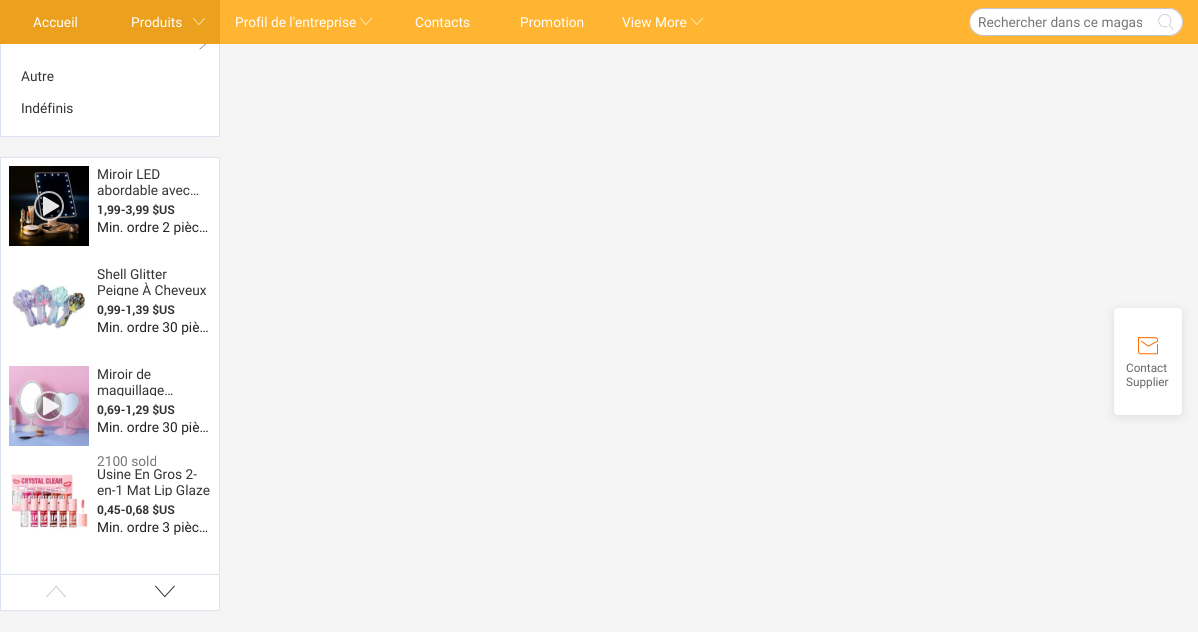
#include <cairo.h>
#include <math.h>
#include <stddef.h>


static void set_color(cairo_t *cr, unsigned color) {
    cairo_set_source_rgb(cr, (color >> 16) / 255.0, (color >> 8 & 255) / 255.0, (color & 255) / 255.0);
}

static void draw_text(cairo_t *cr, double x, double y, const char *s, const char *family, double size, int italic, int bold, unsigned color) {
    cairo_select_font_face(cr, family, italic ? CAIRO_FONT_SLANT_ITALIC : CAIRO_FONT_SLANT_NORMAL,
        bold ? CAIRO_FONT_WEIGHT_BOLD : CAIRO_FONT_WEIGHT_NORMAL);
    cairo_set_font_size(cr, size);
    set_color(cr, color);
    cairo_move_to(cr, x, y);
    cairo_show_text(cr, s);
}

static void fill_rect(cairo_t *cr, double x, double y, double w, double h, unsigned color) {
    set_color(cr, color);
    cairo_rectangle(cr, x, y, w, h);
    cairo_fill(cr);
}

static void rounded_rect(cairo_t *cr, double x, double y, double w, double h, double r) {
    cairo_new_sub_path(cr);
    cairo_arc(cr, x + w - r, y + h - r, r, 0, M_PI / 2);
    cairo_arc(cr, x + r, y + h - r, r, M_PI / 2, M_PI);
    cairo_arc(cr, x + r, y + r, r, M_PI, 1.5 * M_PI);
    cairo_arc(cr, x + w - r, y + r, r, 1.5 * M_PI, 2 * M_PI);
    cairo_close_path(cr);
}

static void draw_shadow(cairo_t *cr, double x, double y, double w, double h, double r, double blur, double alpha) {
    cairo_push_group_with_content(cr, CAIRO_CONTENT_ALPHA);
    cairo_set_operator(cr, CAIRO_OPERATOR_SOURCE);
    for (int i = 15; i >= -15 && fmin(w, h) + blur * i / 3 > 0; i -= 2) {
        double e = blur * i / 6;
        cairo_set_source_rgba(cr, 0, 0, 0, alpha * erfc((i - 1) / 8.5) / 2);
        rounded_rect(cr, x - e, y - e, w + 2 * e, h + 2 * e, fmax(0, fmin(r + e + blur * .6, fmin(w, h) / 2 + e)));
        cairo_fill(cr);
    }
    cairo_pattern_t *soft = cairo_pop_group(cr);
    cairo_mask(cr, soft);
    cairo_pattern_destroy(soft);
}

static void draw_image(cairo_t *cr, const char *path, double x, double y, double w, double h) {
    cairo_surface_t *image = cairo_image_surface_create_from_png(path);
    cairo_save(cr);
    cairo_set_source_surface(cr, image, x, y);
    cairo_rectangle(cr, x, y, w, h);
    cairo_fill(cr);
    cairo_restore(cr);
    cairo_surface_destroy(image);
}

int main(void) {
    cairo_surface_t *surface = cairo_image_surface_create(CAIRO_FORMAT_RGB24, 1198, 632);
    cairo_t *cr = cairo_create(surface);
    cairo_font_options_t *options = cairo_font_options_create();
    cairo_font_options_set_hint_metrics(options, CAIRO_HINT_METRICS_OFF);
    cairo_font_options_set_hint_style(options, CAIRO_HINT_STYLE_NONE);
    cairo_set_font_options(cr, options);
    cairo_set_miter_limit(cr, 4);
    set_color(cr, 0xF5F5F5);
    cairo_paint(cr);
    fill_rect(cr, 220, 0, 978, 44, 0xFFB532);
    fill_rect(cr, 0, 0, 220, 44, 0xEBA11E);
    draw_text(cr, 33, 27, "Accueil", "Roboto", 14, 0, 0, 0xFFFFFF);
    draw_text(cr, 131, 27, "Produits", "Roboto", 14, 0, 0, 0xFFFFFF);
    draw_image(cr, "assets/img1.png", 193, 18, 12, 7);
    draw_text(cr, 235, 27, "Profil de l'entreprise", "Roboto", 14, 0, 0, 0xFFFFFF);
    draw_image(cr, "assets/img2.png", 360, 18, 12, 7);
    draw_text(cr, 415, 27, "Contacts", "Roboto", 14, 0, 0, 0xFFFFFF);
    draw_text(cr, 520, 27, "Promotion", "Roboto", 14, 0, 0, 0xFFFFFF);
    draw_text(cr, 622, 27, "View More", "Roboto", 14, 0, 0, 0xFFFFFF);
    draw_image(cr, "assets/img2.png", 691, 18, 12, 7);
    set_color(cr, 0xC4C6CF);
    cairo_set_fill_rule(cr, CAIRO_FILL_RULE_EVEN_ODD);
    cairo_new_path(cr);
    cairo_move_to(cr, 983, 8);
    cairo_line_to(cr, 1150, 8);
    cairo_line_to(cr, 1150, 36);
    cairo_line_to(cr, 983, 36);
    cairo_curve_to(cr, 975, 36, 969, 30, 969, 22);
    cairo_curve_to(cr, 969, 14, 975, 8, 983, 8);
    cairo_close_path(cr);
    cairo_move_to(cr, 983, 9);
    cairo_line_to(cr, 1150, 9);
    cairo_line_to(cr, 1150, 35);
    cairo_line_to(cr, 983, 35);
    cairo_curve_to(cr, 976, 35, 970, 29, 970, 22);
    cairo_curve_to(cr, 970, 15, 976, 9, 983, 9);
    cairo_close_path(cr);
    cairo_fill(cr);
    set_color(cr, 0xFFFFFF);
    cairo_new_path(cr);
    cairo_move_to(cr, 983, 9);
    cairo_line_to(cr, 1149.5, 9);
    cairo_curve_to(cr, 1150, 9, 1150, 9, 1150, 9.5);
    cairo_line_to(cr, 1150, 34.5);
    cairo_curve_to(cr, 1150, 35, 1150, 35, 1149.5, 35);
    cairo_line_to(cr, 983, 35);
    cairo_curve_to(cr, 976, 35, 970, 29, 970, 22);
    cairo_curve_to(cr, 970, 15, 976, 9, 983, 9);
    cairo_close_path(cr);
    cairo_fill(cr);
    cairo_save(cr);
    cairo_set_fill_rule(cr, CAIRO_FILL_RULE_WINDING);
    cairo_rectangle(cr, 978, 14, 164, 16);
    cairo_clip(cr);
    draw_text(cr, 978, 27, "Rechercher dans ce magas", "Roboto", 14, 0, 0, 0x767676);
    cairo_restore(cr);
    cairo_new_path(cr);
    cairo_move_to(cr, 1150, 8);
    cairo_line_to(cr, 1169, 8);
    cairo_curve_to(cr, 1176.5, 8, 1183, 14.5, 1183, 22);
    cairo_curve_to(cr, 1183, 29.5, 1176.5, 36, 1169, 36);
    cairo_line_to(cr, 1150, 36);
    cairo_close_path(cr);
    cairo_fill(cr);
    set_color(cr, 0xC4C6CF);
    cairo_new_path(cr);
    cairo_move_to(cr, 1150, 8);
    cairo_line_to(cr, 1169, 8);
    cairo_curve_to(cr, 1176.5, 8, 1183, 14.5, 1183, 22);
    cairo_curve_to(cr, 1183, 29.5, 1176.5, 36, 1169, 36);
    cairo_line_to(cr, 1150, 36);
    cairo_close_path(cr);
    cairo_move_to(cr, 1150, 9);
    cairo_line_to(cr, 1169, 9);
    cairo_curve_to(cr, 1176, 9, 1182, 15, 1182, 22);
    cairo_curve_to(cr, 1182, 29, 1176, 35, 1169, 35);
    cairo_line_to(cr, 1150, 35);
    cairo_close_path(cr);
    cairo_fill(cr);
    draw_image(cr, "assets/img3.png", 1158, 14, 16, 16);
    fill_rect(cr, 1, 44, 218, 92, 0xFFFFFF);
    fill_rect(cr, 219, 44, 1, 93, 0xDBE3EF);
    fill_rect(cr, 0, 136, 220, 1, 0xDBE3EF);
    fill_rect(cr, 0, 44, 1, 93, 0xDBE3EF);
    draw_image(cr, "assets/img4.png", 199, 44, 7, 6);
    draw_text(cr, 21, 81, "Autre", "Roboto", 14, 0, 0, 0x333333);
    draw_text(cr, 21, 113, "Indéfinis", "Roboto", 14, 0, 0, 0x333333);
    set_color(cr, 0xFFFFFF);
    cairo_rectangle(cr, 0.5, 157.5, 219, 453);
    cairo_fill_preserve(cr);
    set_color(cr, 0xDBE3EF);
    cairo_set_line_width(cr, 1);
    cairo_stroke(cr);
    draw_image(cr, "assets/img5.png", 9, 166, 80, 80);
    cairo_set_source_rgba(cr, 0, 0, 0, 0.27);
    cairo_arc(cr, 49, 206, 15, 0, 2 * M_PI);
    cairo_fill(cr);
    cairo_arc(cr, 49, 206, 14, 0, 2 * M_PI);
    cairo_set_source_rgba(cr, 1, 1, 1, 0.72);
    cairo_set_line_width(cr, 2);
    cairo_stroke(cr);
    draw_image(cr, "assets/img6.png", 42, 196, 18, 20);
    draw_text(cr, 97, 179, "Miroir LED", "Roboto", 14, 0, 0, 0x333333);
    draw_text(cr, 97, 195, "abordable avec…", "Roboto", 14, 0, 0, 0x333333);
    draw_text(cr, 97, 214, "1,99-3,99 $US", "Roboto", 12, 0, 1, 0x333333);
    draw_text(cr, 97, 232, "Min. ordre 2 pièc…", "Roboto", 14, 0, 0, 0x222222);
    draw_image(cr, "assets/img7.png", 12, 284, 74, 45);
    draw_text(cr, 97, 279, "Shell Glitter", "Roboto", 14, 0, 0, 0x333333);
    cairo_save(cr);
    cairo_set_fill_rule(cr, CAIRO_FILL_RULE_WINDING);
    cairo_rectangle(cr, 97, 266, 114, 30);
    cairo_clip(cr);
    draw_text(cr, 97, 295, "Peigne À Cheveux", "Roboto", 14, 0, 0, 0x333333);
    cairo_restore(cr);
    draw_text(cr, 97, 314, "0,99-1,39 $US", "Roboto", 12, 0, 1, 0x333333);
    draw_text(cr, 97, 332, "Min. ordre 30 piè…", "Roboto", 14, 0, 0, 0x222222);
    draw_image(cr, "assets/img8.png", 9, 366, 80, 80);
    cairo_set_source_rgba(cr, 0, 0, 0, 0.27);
    cairo_arc(cr, 49, 406, 15, 0, 2 * M_PI);
    cairo_fill(cr);
    cairo_arc(cr, 49, 406, 14, 0, 2 * M_PI);
    cairo_set_source_rgba(cr, 1, 1, 1, 0.72);
    cairo_stroke(cr);
    draw_image(cr, "assets/img9.png", 42, 396, 18, 20);
    draw_text(cr, 97, 379, "Miroir de", "Roboto", 14, 0, 0, 0x333333);
    cairo_save(cr);
    cairo_set_fill_rule(cr, CAIRO_FILL_RULE_WINDING);
    cairo_rectangle(cr, 97, 366, 114, 30);
    cairo_clip(cr);
    draw_text(cr, 97, 395, "maquillage…", "Roboto", 14, 0, 0, 0x333333);
    cairo_restore(cr);
    draw_text(cr, 97, 414, "0,69-1,29 $US", "Roboto", 12, 0, 1, 0x333333);
    draw_text(cr, 97, 432, "Min. ordre 30 piè…", "Roboto", 14, 0, 0, 0x222222);
    cairo_save(cr);
    cairo_set_fill_rule(cr, CAIRO_FILL_RULE_WINDING);
    cairo_rectangle(cr, 97, 366, 114, 100);
    cairo_clip(cr);
    draw_text(cr, 97, 466, "2100 sold", "Roboto", 14, 0, 0, 0x767676);
    cairo_restore(cr);
    draw_image(cr, "assets/img10.png", 11, 474, 78, 56);
    draw_text(cr, 97, 479, "Usine En Gros 2-", "Roboto", 14, 0, 0, 0x333333);
    cairo_save(cr);
    cairo_set_fill_rule(cr, CAIRO_FILL_RULE_WINDING);
    cairo_rectangle(cr, 97, 466, 114, 30);
    cairo_clip(cr);
    draw_text(cr, 97, 495, "en-1 Mat Lip Glaze", "Roboto", 14, 0, 0, 0x333333);
    cairo_restore(cr);
    draw_text(cr, 97, 514, "0,45-0,68 $US", "Roboto", 12, 0, 1, 0x333333);
    draw_text(cr, 97, 532, "Min. ordre 3 pièc…", "Roboto", 14, 0, 0, 0x222222);
    fill_rect(cr, 1, 574, 218, 1, 0xDBE3EF);
    draw_image(cr, "assets/img11.png", 46, 585, 20, 13);
    draw_image(cr, "assets/img12.png", 155, 585, 20, 13);
    set_color(cr, 0x000000);
    draw_shadow(cr, 1114, 310, 68, 107, 4, 5, 0.1);
    set_color(cr, 0xFFFFFF);
    rounded_rect(cr, 1114, 308, 68, 107, 4);
    cairo_fill(cr);
    draw_image(cr, "assets/img13.png", 1138, 337, 20, 18);
    draw_text(cr, 1126, 372, "Contact", "Roboto", 12, 0, 0, 0x666666);
    draw_text(cr, 1126, 386, "Supplier", "Roboto", 12, 0, 0, 0x666666);
    cairo_surface_write_to_png(surface, "output.png");
    cairo_font_options_destroy(options);
    cairo_destroy(cr);
    cairo_surface_destroy(surface);
    return 0;
}
